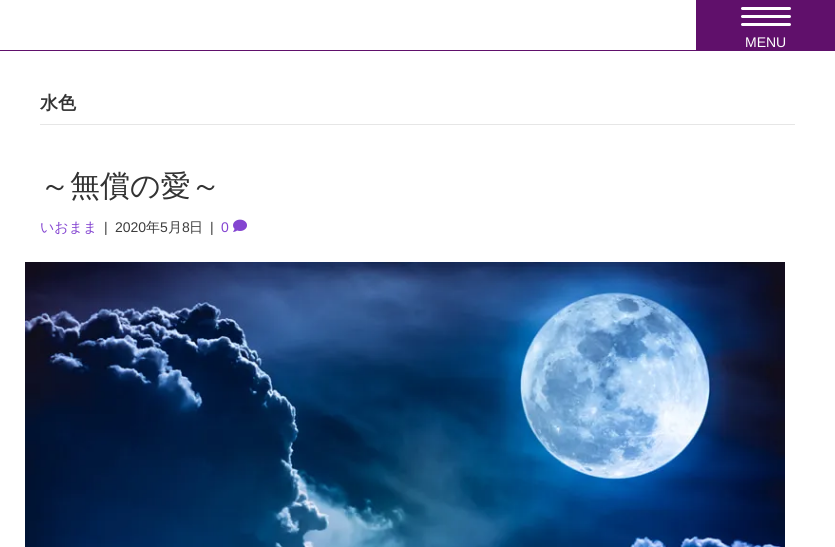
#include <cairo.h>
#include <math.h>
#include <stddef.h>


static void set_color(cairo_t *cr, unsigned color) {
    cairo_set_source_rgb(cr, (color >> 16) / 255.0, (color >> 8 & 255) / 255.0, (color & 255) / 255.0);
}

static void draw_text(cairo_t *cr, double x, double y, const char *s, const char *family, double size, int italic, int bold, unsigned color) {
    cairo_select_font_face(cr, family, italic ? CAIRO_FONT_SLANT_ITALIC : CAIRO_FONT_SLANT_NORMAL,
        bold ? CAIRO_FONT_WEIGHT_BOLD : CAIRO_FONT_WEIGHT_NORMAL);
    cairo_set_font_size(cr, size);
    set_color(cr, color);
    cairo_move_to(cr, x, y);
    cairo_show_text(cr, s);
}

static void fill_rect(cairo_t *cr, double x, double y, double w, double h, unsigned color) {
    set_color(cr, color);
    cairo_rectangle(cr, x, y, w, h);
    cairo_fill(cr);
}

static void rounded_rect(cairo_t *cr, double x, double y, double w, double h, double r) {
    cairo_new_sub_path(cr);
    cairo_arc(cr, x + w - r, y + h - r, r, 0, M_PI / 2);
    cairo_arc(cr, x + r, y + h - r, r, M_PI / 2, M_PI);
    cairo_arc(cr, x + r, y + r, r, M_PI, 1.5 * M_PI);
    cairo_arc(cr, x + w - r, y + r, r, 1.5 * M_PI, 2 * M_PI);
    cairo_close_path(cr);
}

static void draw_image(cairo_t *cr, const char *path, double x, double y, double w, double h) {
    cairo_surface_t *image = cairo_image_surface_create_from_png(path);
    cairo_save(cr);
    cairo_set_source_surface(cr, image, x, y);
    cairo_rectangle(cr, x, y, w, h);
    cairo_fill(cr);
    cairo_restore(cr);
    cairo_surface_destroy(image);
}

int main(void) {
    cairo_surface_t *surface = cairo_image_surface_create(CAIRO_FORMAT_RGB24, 835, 547);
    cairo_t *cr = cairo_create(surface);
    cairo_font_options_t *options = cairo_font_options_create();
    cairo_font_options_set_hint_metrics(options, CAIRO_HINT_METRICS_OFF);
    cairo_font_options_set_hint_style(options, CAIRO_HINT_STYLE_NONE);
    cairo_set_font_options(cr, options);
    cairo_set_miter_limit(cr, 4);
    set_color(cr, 0xFFFFFF);
    cairo_paint(cr);
    fill_rect(cr, 0, 50, 835, 1, 0x60106B);
    fill_rect(cr, 696, 0, 139, 50, 0x60106B);
    set_color(cr, 0xFFFFFF);
    rounded_rect(cr, 741, 15, 50, 3, 1.5);
    cairo_fill(cr);
    rounded_rect(cr, 741, 7, 50, 3, 1.5);
    cairo_fill(cr);
    rounded_rect(cr, 741, 23, 50, 3, 1.5);
    cairo_fill(cr);
    draw_text(cr, 745, 47, "MENU", "Liberation Sans", 14, 0, 0, 0xFFFFFF);
    fill_rect(cr, 40, 124, 755, 1, 0xE6E6E6);
    draw_text(cr, 40, 109, "水色", "WenQuanYi Zen Hei", 18, 0, 1, 0x333333);
    draw_text(cr, 40, 196, "～無償の愛～", "WenQuanYi Zen Hei Medium", 30, 0, 0, 0x333333);
    draw_text(cr, 40, 232, "いおまま", "WenQuanYi Zen Hei Medium", 14, 0, 0, 0x8445D1);
    draw_text(cr, 104, 232, "|", "Liberation Sans", 14, 0, 0, 0x3D3D3D);
    draw_text(cr, 115, 232, "2020", "Liberation Sans", 14, 0, 0, 0x3D3D3D);
    draw_text(cr, 146, 232, "年", "WenQuanYi Zen Hei Medium", 14, 0, 0, 0x3D3D3D);
    draw_text(cr, 160, 232, "5", "Liberation Sans", 14, 0, 0, 0x3D3D3D);
    draw_text(cr, 168, 232, "月", "WenQuanYi Zen Hei Medium", 14, 0, 0, 0x3D3D3D);
    draw_text(cr, 182, 232, "8", "Liberation Sans", 14, 0, 0, 0x3D3D3D);
    draw_text(cr, 189, 232, "日", "WenQuanYi Zen Hei Medium", 14, 0, 0, 0x3D3D3D);
    draw_text(cr, 210, 232, "|", "Liberation Sans", 14, 0, 0, 0x3D3D3D);
    draw_text(cr, 221, 232, "0", "Liberation Sans", 14, 0, 0, 0x8445D1);
    draw_image(cr, "assets/img1.png", 233, 219, 14, 13);
    draw_image(cr, "assets/img2.png", 25, 262, 760, 285);
    cairo_surface_write_to_png(surface, "output.png");
    cairo_font_options_destroy(options);
    cairo_destroy(cr);
    cairo_surface_destroy(surface);
    return 0;
}
